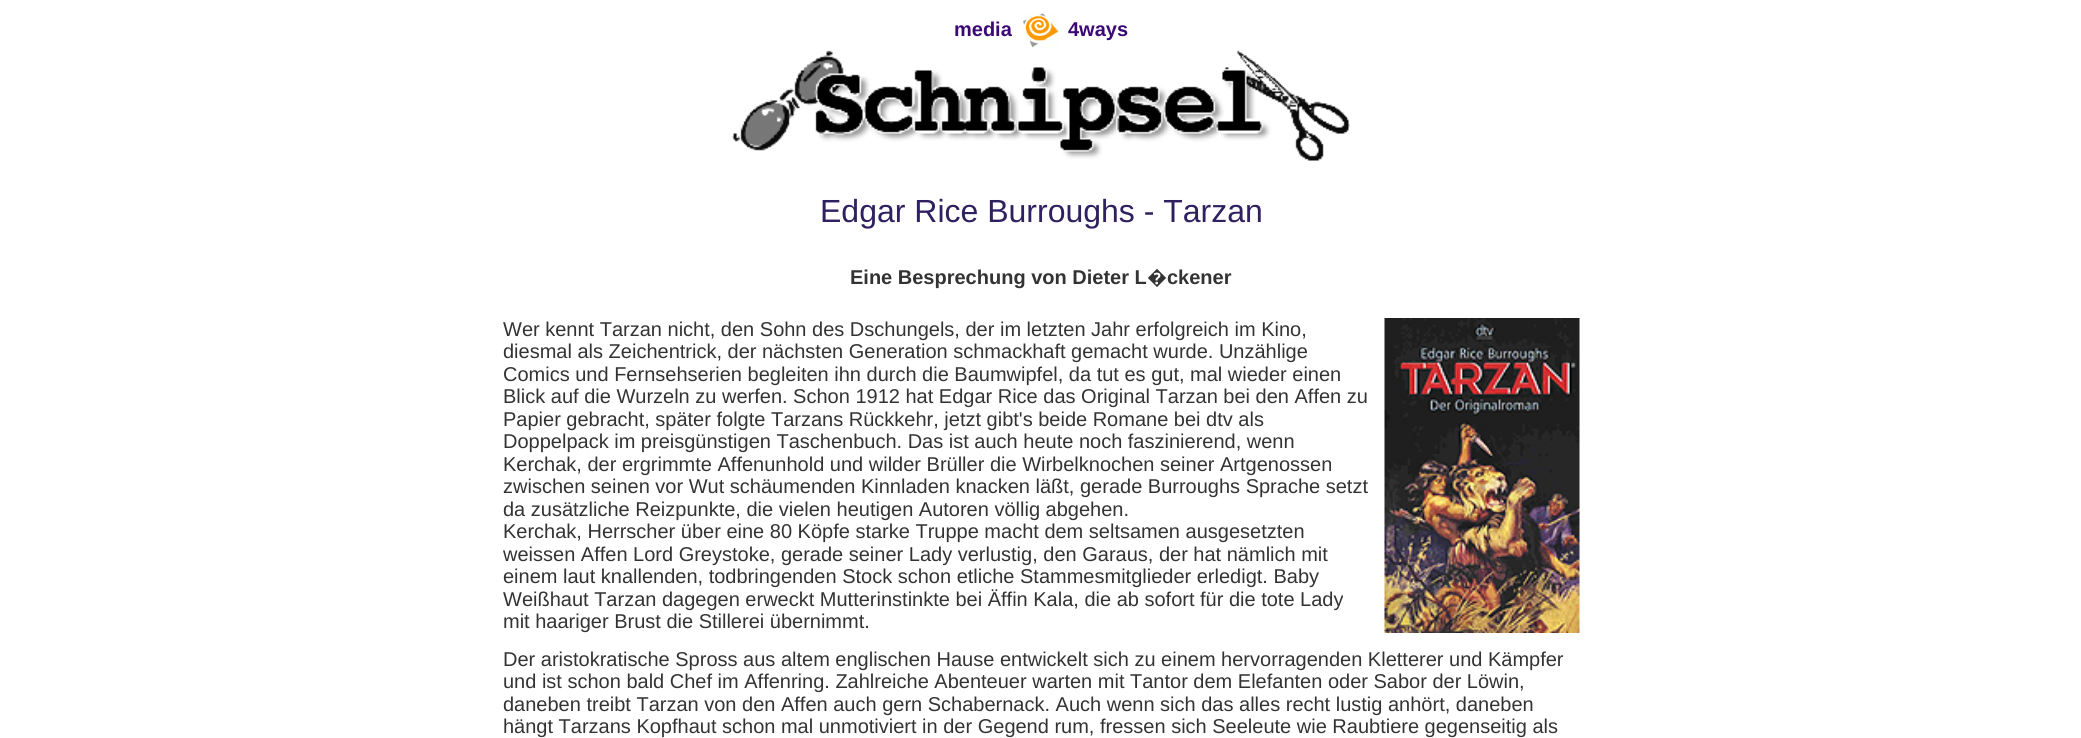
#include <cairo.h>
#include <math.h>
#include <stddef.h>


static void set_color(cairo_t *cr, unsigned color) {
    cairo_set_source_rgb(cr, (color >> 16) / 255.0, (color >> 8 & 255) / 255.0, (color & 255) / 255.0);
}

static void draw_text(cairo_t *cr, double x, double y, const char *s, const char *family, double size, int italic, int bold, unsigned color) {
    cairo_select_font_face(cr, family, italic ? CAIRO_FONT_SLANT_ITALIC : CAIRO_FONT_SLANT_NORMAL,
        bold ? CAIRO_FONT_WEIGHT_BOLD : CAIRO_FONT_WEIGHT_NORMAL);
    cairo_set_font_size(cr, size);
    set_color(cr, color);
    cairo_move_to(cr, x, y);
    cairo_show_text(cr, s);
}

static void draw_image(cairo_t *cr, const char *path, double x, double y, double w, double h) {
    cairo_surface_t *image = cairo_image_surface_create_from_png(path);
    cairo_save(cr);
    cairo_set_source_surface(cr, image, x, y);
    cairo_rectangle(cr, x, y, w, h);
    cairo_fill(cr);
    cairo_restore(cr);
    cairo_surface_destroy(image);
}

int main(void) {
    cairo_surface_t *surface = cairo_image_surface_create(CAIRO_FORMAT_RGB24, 2081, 738);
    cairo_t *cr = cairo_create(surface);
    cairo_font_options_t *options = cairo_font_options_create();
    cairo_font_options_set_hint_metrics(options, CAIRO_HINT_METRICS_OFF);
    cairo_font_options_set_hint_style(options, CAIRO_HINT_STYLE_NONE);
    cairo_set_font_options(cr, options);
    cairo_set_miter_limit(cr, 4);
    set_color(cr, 0xFFFFFF);
    cairo_paint(cr);
    draw_text(cr, 954, 36, "media", "Liberation Sans", 20, 0, 1, 0x3B0973);
    draw_image(cr, "assets/img1.png", 1023, 13, 36, 35);
    draw_text(cr, 1068, 36, "4ways", "Liberation Sans", 20, 0, 1, 0x3B0973);
    draw_image(cr, "assets/img2.png", 732, 50, 618, 111);
    draw_text(cr, 820, 222, "Edgar Rice Burroughs - Tarzan", "Liberation Sans", 32, 0, 0, 0x302060);
    draw_text(cr, 850, 284, "Eine Besprechung von Dieter L", "Liberation Sans", 20, 0, 1, 0x333333);
    draw_text(cr, 1147, 284, "�", "Noto Sans", 20, 0, 1, 0x333333);
    draw_text(cr, 1167, 284, "ckener", "Liberation Sans", 20, 0, 1, 0x333333);
    draw_text(cr, 503, 336, "Wer kennt Tarzan nicht, den Sohn des Dschungels, der im letzten Jahr erfolgreich im Kino,", "Liberation Sans", 20, 0, 0, 0x333333);
    draw_text(cr, 503, 358, "diesmal als Zeichentrick, der nächsten Generation schmackhaft gemacht wurde. Unzählige", "Liberation Sans", 20, 0, 0, 0x333333);
    draw_text(cr, 503, 381, "Comics und Fernsehserien begleiten ihn durch die Baumwipfel, da tut es gut, mal wieder einen", "Liberation Sans", 20, 0, 0, 0x333333);
    draw_text(cr, 503, 403, "Blick auf die Wurzeln zu werfen. Schon 1912 hat Edgar Rice das Original Tarzan bei den Affen zu", "Liberation Sans", 20, 0, 0, 0x333333);
    draw_text(cr, 503, 426, "Papier gebracht, später folgte Tarzans Rückkehr, jetzt gibt's beide Romane bei dtv als", "Liberation Sans", 20, 0, 0, 0x333333);
    draw_text(cr, 503, 448, "Doppelpack im preisgünstigen Taschenbuch. Das ist auch heute noch faszinierend, wenn", "Liberation Sans", 20, 0, 0, 0x333333);
    draw_text(cr, 503, 471, "Kerchak, der ergrimmte Affenunhold und wilder Brüller die Wirbelknochen seiner Artgenossen", "Liberation Sans", 20, 0, 0, 0x333333);
    draw_text(cr, 503, 493, "zwischen seinen vor Wut schäumenden Kinnladen knacken läßt, gerade Burroughs Sprache setzt", "Liberation Sans", 20, 0, 0, 0x333333);
    draw_text(cr, 503, 516, "da zusätzliche Reizpunkte, die vielen heutigen Autoren völlig abgehen.", "Liberation Sans", 20, 0, 0, 0x333333);
    draw_text(cr, 503, 538, "Kerchak, Herrscher über eine 80 Köpfe starke Truppe macht dem seltsamen ausgesetzten", "Liberation Sans", 20, 0, 0, 0x333333);
    draw_text(cr, 503, 561, "weissen Affen Lord Greystoke, gerade seiner Lady verlustig, den Garaus, der hat nämlich mit", "Liberation Sans", 20, 0, 0, 0x333333);
    draw_text(cr, 503, 583, "einem laut knallenden, todbringenden Stock schon etliche Stammesmitglieder erledigt. Baby", "Liberation Sans", 20, 0, 0, 0x333333);
    draw_text(cr, 503, 606, "Weißhaut Tarzan dagegen erweckt Mutterinstinkte bei Äffin Kala, die ab sofort für die tote Lady", "Liberation Sans", 20, 0, 0, 0x333333);
    draw_text(cr, 503, 628, "mit haariger Brust die Stillerei übernimmt.", "Liberation Sans", 20, 0, 0, 0x333333);
    draw_image(cr, "assets/img3.png", 1384, 318, 196, 315);
    draw_text(cr, 503, 666, "Der aristokratische Spross aus altem englischen Hause entwickelt sich zu einem hervorragenden Kletterer und Kämpfer", "Liberation Sans", 20, 0, 0, 0x333333);
    draw_text(cr, 503, 688, "und ist schon bald Chef im Affenring. Zahlreiche Abenteuer warten mit Tantor dem Elefanten oder Sabor der Löwin,", "Liberation Sans", 20, 0, 0, 0x333333);
    draw_text(cr, 503, 711, "daneben treibt Tarzan von den Affen auch gern Schabernack. Auch wenn sich das alles recht lustig anhört, daneben", "Liberation Sans", 20, 0, 0, 0x333333);
    draw_text(cr, 503, 733, "hängt Tarzans Kopfhaut schon mal unmotiviert in der Gegend rum, fressen sich Seeleute wie Raubtiere gegenseitig als", "Liberation Sans", 20, 0, 0, 0x333333);
    cairo_surface_write_to_png(surface, "output.png");
    cairo_font_options_destroy(options);
    cairo_destroy(cr);
    cairo_surface_destroy(surface);
    return 0;
}
